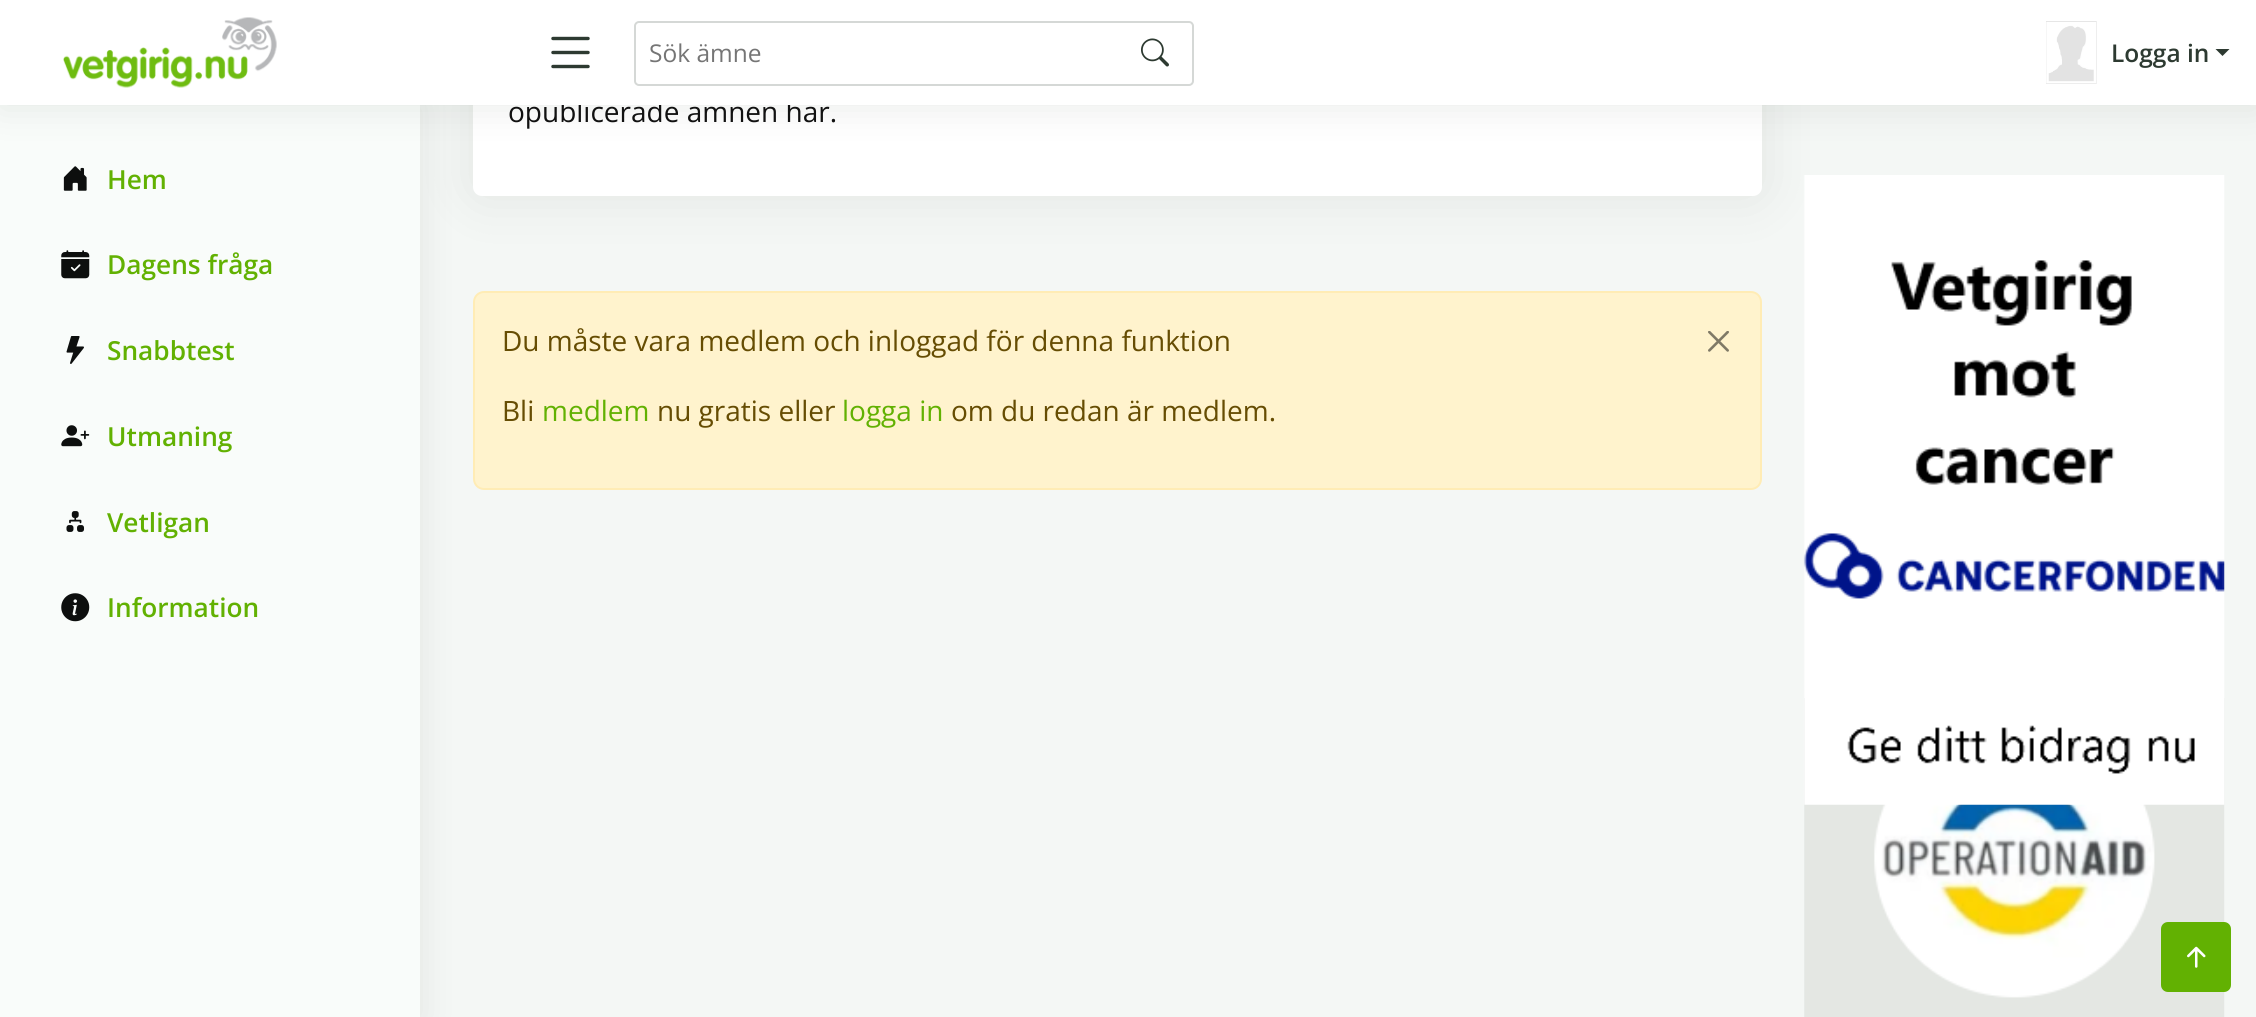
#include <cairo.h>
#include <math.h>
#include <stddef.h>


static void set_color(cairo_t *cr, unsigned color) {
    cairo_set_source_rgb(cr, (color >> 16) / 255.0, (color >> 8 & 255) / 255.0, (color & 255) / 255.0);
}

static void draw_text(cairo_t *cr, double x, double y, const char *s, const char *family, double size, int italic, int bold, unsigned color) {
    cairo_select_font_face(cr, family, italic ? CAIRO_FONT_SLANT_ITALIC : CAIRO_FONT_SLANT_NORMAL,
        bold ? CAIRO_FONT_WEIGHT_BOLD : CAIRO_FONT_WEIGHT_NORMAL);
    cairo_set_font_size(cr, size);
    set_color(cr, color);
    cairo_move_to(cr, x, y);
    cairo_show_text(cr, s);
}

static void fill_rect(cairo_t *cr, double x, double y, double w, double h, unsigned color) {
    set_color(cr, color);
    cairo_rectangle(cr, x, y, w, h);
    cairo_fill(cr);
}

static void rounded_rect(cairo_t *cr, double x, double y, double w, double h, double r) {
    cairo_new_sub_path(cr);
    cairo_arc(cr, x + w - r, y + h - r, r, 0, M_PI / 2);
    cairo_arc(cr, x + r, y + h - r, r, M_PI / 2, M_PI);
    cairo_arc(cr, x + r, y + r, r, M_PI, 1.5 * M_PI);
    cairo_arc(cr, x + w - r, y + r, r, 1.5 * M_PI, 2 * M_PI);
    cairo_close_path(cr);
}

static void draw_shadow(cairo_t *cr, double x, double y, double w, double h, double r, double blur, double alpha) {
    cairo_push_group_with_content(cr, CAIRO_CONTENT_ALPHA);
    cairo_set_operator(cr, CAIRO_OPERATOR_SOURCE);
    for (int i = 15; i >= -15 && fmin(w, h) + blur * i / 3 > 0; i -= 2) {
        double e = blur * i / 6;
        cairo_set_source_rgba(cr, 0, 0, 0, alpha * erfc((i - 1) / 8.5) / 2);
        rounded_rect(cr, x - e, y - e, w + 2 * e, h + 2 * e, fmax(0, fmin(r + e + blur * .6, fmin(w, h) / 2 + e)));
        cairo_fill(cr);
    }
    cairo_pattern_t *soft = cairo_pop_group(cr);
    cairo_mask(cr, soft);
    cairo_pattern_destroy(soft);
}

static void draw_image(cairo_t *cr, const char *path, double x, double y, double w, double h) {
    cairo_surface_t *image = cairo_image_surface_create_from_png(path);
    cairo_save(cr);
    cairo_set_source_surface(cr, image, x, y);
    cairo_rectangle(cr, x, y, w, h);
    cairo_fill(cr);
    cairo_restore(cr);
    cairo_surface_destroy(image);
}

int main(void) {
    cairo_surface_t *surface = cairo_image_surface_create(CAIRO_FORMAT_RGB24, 2256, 1017);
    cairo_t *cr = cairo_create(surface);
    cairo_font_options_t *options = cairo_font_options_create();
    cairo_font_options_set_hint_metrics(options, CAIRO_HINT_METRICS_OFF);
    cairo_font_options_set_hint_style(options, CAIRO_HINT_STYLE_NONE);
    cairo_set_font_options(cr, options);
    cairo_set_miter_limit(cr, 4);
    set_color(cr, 0xF4F7F5);
    cairo_paint(cr);
    set_color(cr, 0x2D3A31);
    draw_shadow(cr, 473, -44, 1289, 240, 9, 26, 0.1);
    set_color(cr, 0xFFFFFF);
    rounded_rect(cr, 473, -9, 1289, 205, 9);
    cairo_fill(cr);
    set_color(cr, 0xFFF3CD);
    rounded_rect(cr, 474, 292, 1287, 197, 10);
    cairo_fill_preserve(cr);
    set_color(cr, 0xFFECB5);
    cairo_stroke(cr);
    set_color(cr, 0x2D3A31);
    draw_shadow(cr, 0, 105, 420, 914, 0, 17.5, 0.1);
    fill_rect(cr, 0, 105, 420, 912, 0xF9FCFA);
    set_color(cr, 0x2D3A31);
    draw_shadow(cr, 0, 4, 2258, 105, 0, 17.5, 0.1);
    draw_text(cr, 508, 122, "opublicerade ämnen här.", "Open Sans", 28, 0, 0, 0x111111);
    fill_rect(cr, 0, 0, 2256, 105, 0xFFFFFF);
    draw_image(cr, "assets/img1.png", 63, 17, 214, 71);
    draw_image(cr, "assets/img2.png", 551, 36, 39, 33);
    rounded_rect(cr, 635, 22, 558, 63, 4);
    set_color(cr, 0xD5D8D6);
    cairo_stroke(cr);
    draw_text(cr, 649, 62, "Sök ämne", "Open Sans", 24.5, 0, 0, 0x757575);
    draw_image(cr, "assets/img3.png", 1141, 38, 28, 29);
    draw_image(cr, "assets/img4.png", 2046, 21, 51, 63);
    draw_text(cr, 2111, 62, "Logga in", "Open Sans SemiBold", 24.5, 0, 0, 0x2D3A31);
    cairo_new_path(cr);
    cairo_move_to(cr, 2215.5, 49);
    cairo_line_to(cr, 2229.5, 49);
    cairo_line_to(cr, 2222.5, 56);
    cairo_close_path(cr);
    cairo_fill(cr);
    draw_image(cr, "assets/img5.png", 63, 166, 24, 25);
    draw_text(cr, 107, 189, "Hem", "Open Sans SemiBold", 26.25, 0, 0, 0x62B102);
    draw_image(cr, "assets/img6.png", 61, 250, 29, 29);
    draw_text(cr, 107, 274, "Dagens fråga", "Open Sans SemiBold", 26.25, 0, 0, 0x62B102);
    draw_image(cr, "assets/img7.png", 66, 336, 18, 28);
    draw_text(cr, 107, 360, "Snabbtest", "Open Sans SemiBold", 26.25, 0, 0, 0x62B102);
    draw_image(cr, "assets/img8.png", 61, 425, 29, 22);
    draw_text(cr, 107, 446, "Utmaning", "Open Sans SemiBold", 26.25, 0, 0, 0x62B102);
    draw_image(cr, "assets/img9.png", 66, 511, 19, 21);
    draw_text(cr, 107, 532, "Vetligan", "Open Sans SemiBold", 26.25, 0, 0, 0x62B102);
    draw_image(cr, "assets/img10.png", 61, 593, 29, 29);
    draw_text(cr, 107, 617, "Information", "Open Sans SemiBold", 26.25, 0, 0, 0x62B102);
    draw_text(cr, 502, 351, "Du måste vara medlem och inloggad för denna funktion", "Open Sans", 28, 0, 0, 0x664D03);
    draw_image(cr, "assets/img11.png", 1708, 331, 21, 21);
    draw_text(cr, 502, 421, "Bli", "Open Sans", 28, 0, 0, 0x664D03);
    draw_text(cr, 542, 421, "medlem", "Open Sans", 28, 0, 0, 0x62B102);
    draw_text(cr, 657, 421, "nu gratis eller", "Open Sans", 28, 0, 0, 0x664D03);
    draw_text(cr, 842, 421, "logga in", "Open Sans", 28, 0, 0, 0x62B102);
    draw_text(cr, 951, 421, "om du redan är medlem.", "Open Sans", 28, 0, 0, 0x664D03);
    draw_image(cr, "assets/img13.png", 1804, 698, 421, 319);
    draw_image(cr, "assets/img12.png", 1803, 175, 422, 630);
    set_color(cr, 0x62B102);
    rounded_rect(cr, 2161, 922, 70, 70, 7);
    cairo_fill(cr);
    draw_image(cr, "assets/img14.png", 2187, 946, 19, 22);
    cairo_surface_write_to_png(surface, "output.png");
    cairo_font_options_destroy(options);
    cairo_destroy(cr);
    cairo_surface_destroy(surface);
    return 0;
}
